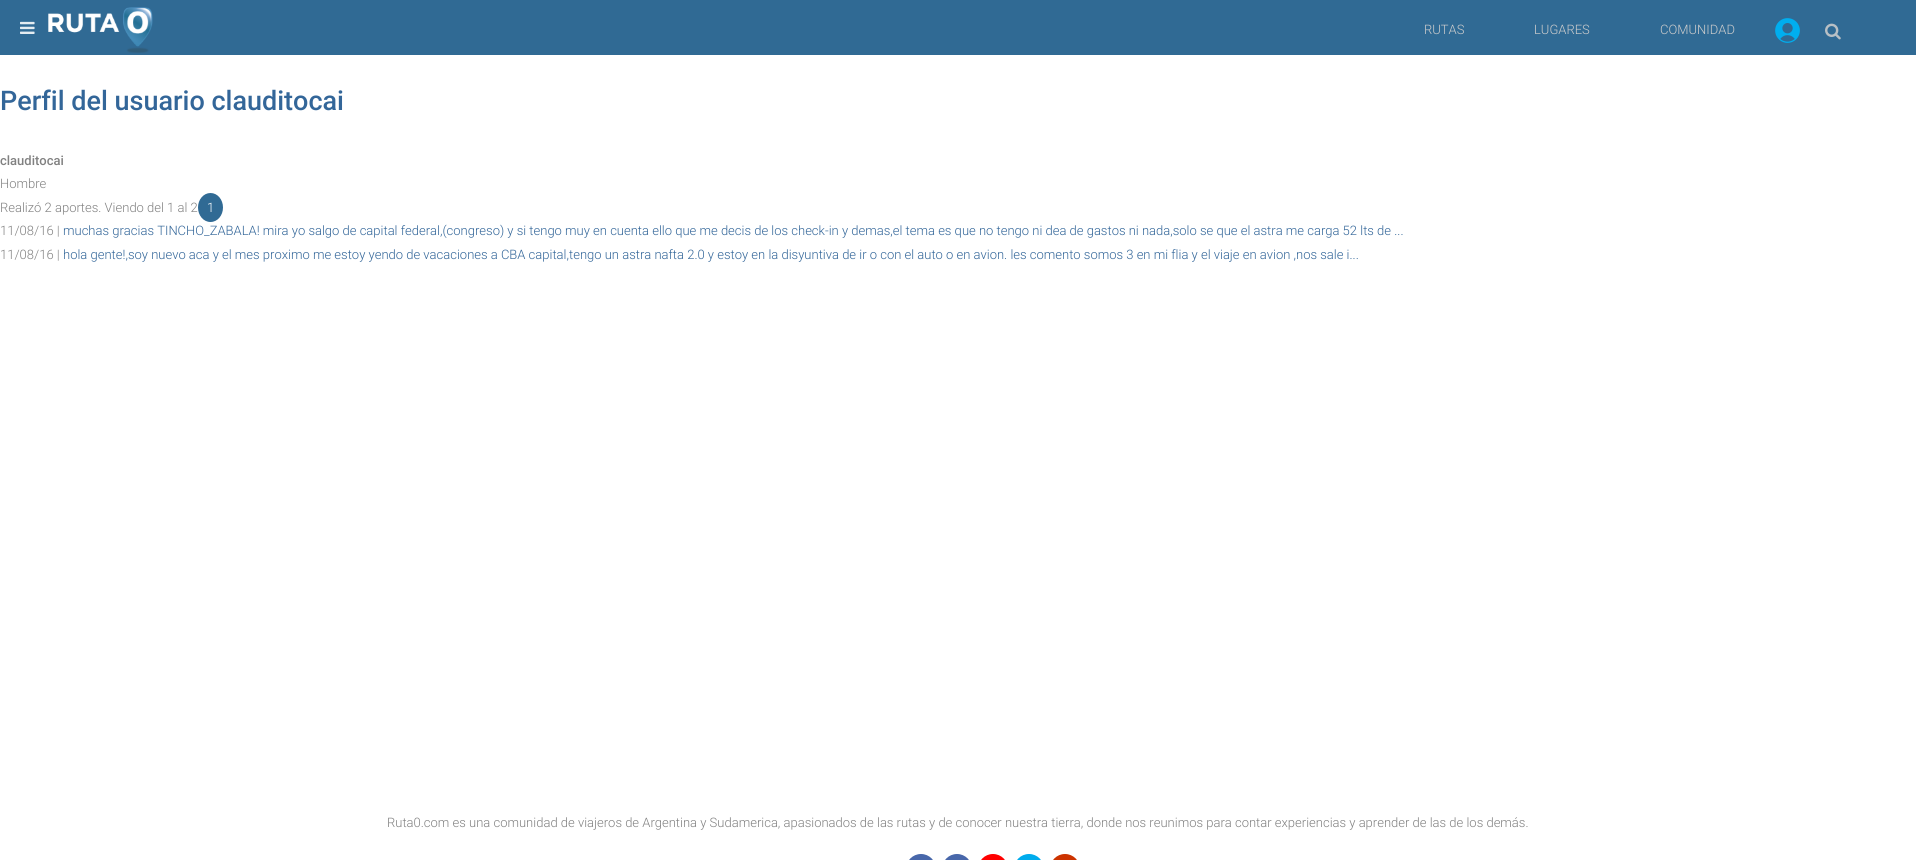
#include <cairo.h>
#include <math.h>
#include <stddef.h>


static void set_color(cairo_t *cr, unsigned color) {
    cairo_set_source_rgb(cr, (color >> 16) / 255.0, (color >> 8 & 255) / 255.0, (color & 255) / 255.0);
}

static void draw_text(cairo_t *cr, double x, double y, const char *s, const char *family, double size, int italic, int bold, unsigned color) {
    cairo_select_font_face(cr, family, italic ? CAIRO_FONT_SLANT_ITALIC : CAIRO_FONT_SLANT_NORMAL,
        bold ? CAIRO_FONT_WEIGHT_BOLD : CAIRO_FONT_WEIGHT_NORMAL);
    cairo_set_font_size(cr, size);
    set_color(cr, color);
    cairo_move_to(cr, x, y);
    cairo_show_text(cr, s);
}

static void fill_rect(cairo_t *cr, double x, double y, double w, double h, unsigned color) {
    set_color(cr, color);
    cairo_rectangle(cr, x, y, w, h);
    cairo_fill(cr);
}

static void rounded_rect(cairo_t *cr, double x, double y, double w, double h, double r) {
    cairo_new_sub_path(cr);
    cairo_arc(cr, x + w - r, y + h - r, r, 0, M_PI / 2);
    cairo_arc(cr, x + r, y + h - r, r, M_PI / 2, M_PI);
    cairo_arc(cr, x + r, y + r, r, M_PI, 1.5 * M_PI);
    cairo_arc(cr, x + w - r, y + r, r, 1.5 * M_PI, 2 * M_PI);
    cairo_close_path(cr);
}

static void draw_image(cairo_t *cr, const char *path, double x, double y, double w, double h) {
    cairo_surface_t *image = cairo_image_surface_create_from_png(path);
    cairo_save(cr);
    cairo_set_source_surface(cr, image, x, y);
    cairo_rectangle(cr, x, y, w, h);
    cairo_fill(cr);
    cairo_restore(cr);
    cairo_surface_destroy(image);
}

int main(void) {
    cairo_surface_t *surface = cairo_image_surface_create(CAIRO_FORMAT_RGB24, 1916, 860);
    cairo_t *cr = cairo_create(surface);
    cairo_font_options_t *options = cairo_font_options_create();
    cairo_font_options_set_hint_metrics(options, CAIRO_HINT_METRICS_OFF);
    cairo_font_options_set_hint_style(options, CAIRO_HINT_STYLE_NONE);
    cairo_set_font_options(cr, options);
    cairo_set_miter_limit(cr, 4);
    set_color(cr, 0xFFFFFF);
    cairo_paint(cr);
    fill_rect(cr, 0, 0, 1916, 55, 0x306A94);
    draw_image(cr, "assets/img1.png", 20, 21, 15, 13);
    draw_image(cr, "assets/img2.png", 48, 7, 105, 46);
    draw_text(cr, 1424, 34, "RUTAS", "Roboto Light", 13, 0, 0, 0xCCCCCC);
    draw_text(cr, 1534, 34, "LUGARES", "Roboto Light", 13, 0, 0, 0xCCCCCC);
    draw_text(cr, 1660, 34, "COMUNIDAD", "Roboto Light", 13, 0, 0, 0xCCCCCC);
    draw_image(cr, "assets/img3.png", 1775, 18, 25, 25);
    draw_image(cr, "assets/img4.png", 1825, 23, 16, 17);
    draw_text(cr, 0, 110, "Perfil del usuario clauditocai", "Roboto Medium", 27, 0, 0, 0x336699);
    draw_text(cr, 0, 165, "clauditocai", "Roboto Medium", 13, 0, 0, 0x818181);
    draw_text(cr, 0, 188, "Hombre", "Roboto Light", 13, 0, 0, 0x818181);
    draw_text(cr, 0, 212, "Realizó 2 aportes. Viendo del 1 al 2", "Roboto Light", 13, 0, 0, 0x818181);
    set_color(cr, 0x306A94);
    cairo_new_path(cr);
    cairo_move_to(cr, 210.5, 193);
    cairo_curve_to(cr, 217.5, 193, 223, 199.5, 223, 207.5);
    cairo_curve_to(cr, 223, 215.5, 217.5, 222, 210.5, 222);
    cairo_curve_to(cr, 203.5, 222, 198, 215.5, 198, 207.5);
    cairo_curve_to(cr, 198, 199.5, 203.5, 193, 210.5, 193);
    cairo_close_path(cr);
    cairo_fill(cr);
    draw_text(cr, 207, 212, "1", "Roboto Light", 13, 0, 0, 0xFFFFFF);
    draw_text(cr, 0, 235, "11/08/16 |", "Roboto Light", 13, 0, 0, 0x818181);
    draw_text(cr, 63, 235, "muchas gracias TINCHO_ZABALA! mira yo salgo de capital federal,(congreso) y si tengo muy en cuenta ello que me decis de los check-in y demas,el tema es que no tengo ni dea de gastos ni nada,solo se que el astra me carga 52 lts de ...", "Roboto Light", 13, 0, 0, 0x336699);
    draw_text(cr, 0, 259, "11/08/16 |", "Roboto Light", 13, 0, 0, 0x818181);
    draw_text(cr, 63, 259, "hola gente!,soy nuevo aca y el mes proximo me estoy yendo de vacaciones a CBA capital,tengo un astra nafta 2.0 y estoy en la disyuntiva de ir o con el auto o en avion. les comento somos 3 en mi flia y el viaje en avion ,nos sale i...", "Roboto Light", 13, 0, 0, 0x336699);
    draw_text(cr, 387, 827, "Ruta0.com es una comunidad de viajeros de Argentina y Sudamerica, apasionados de las rutas y de conocer nuestra tierra, donde nos reunimos para contar experiencias y aprender de las de los demás.", "Roboto Light", 13, 0, 0, 0x818181);
    set_color(cr, 0x4867AA);
    rounded_rect(cr, 906, 854, 30, 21, 15);
    cairo_fill(cr);
    rounded_rect(cr, 942, 854, 30, 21, 15);
    cairo_fill(cr);
    set_color(cr, 0xFF0000);
    rounded_rect(cr, 978, 854, 30, 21, 15);
    cairo_fill(cr);
    set_color(cr, 0x00ACED);
    rounded_rect(cr, 1014, 854, 30, 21, 15);
    cairo_fill(cr);
    set_color(cr, 0xCC3300);
    rounded_rect(cr, 1050, 854, 30, 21, 15);
    cairo_fill(cr);
    cairo_surface_write_to_png(surface, "output.png");
    cairo_font_options_destroy(options);
    cairo_destroy(cr);
    cairo_surface_destroy(surface);
    return 0;
}
